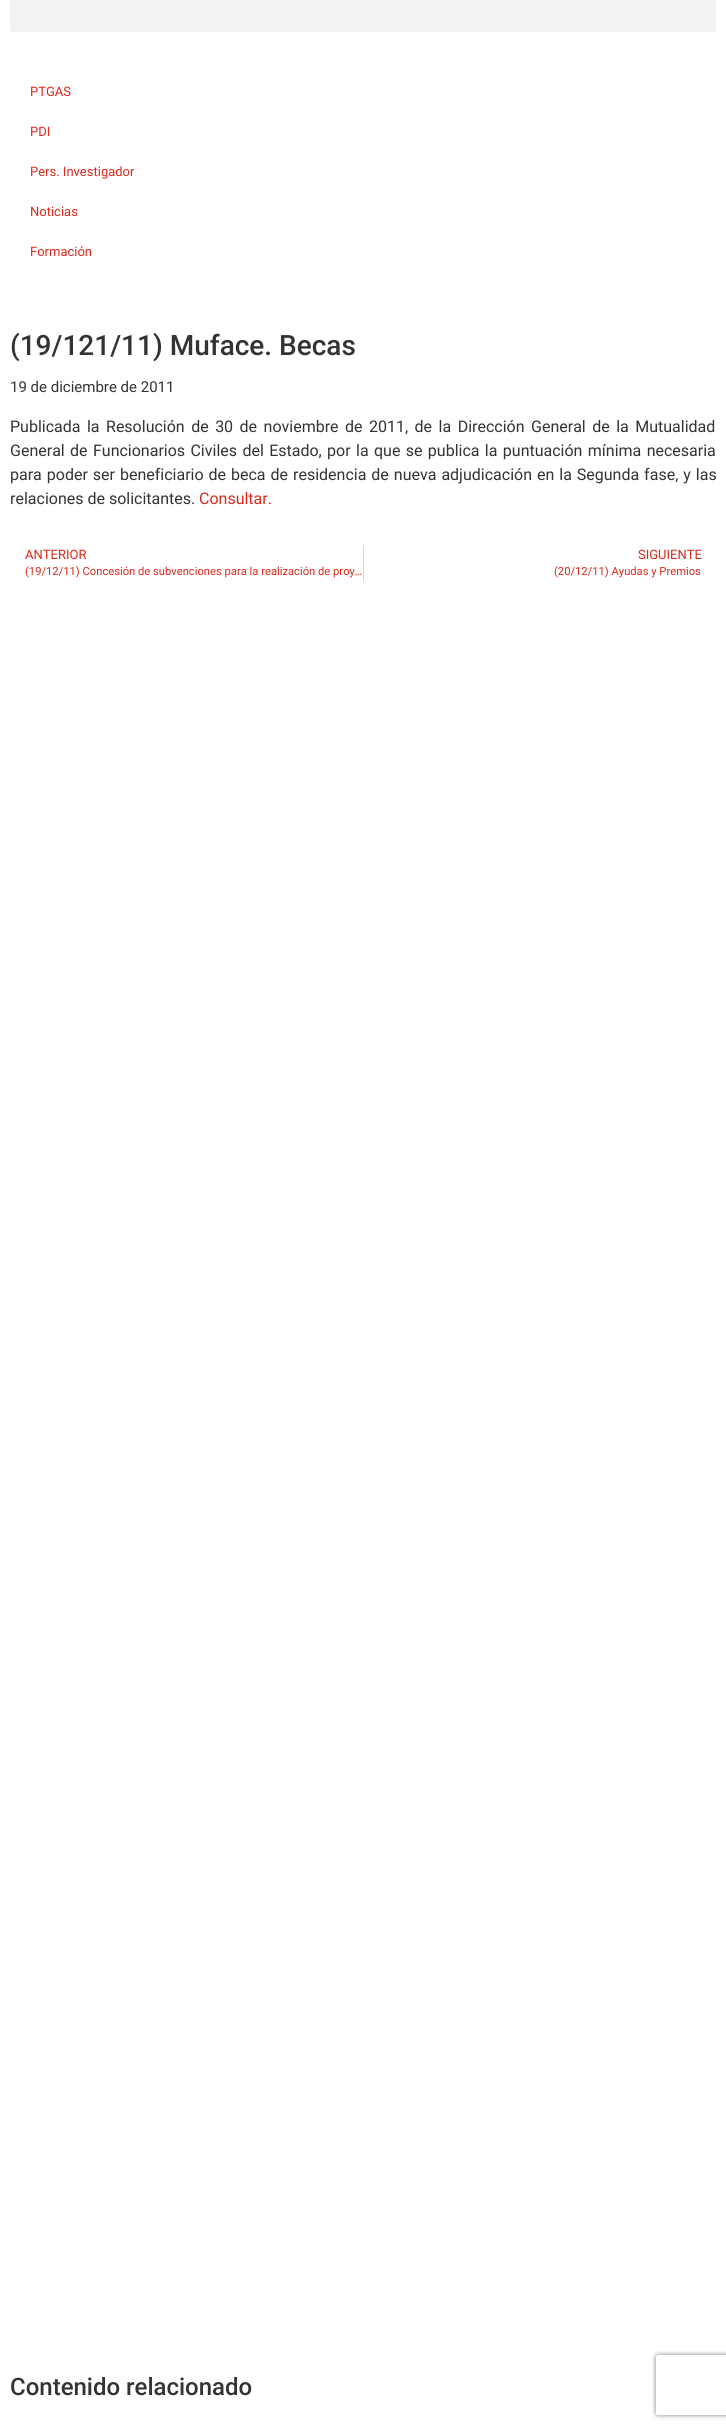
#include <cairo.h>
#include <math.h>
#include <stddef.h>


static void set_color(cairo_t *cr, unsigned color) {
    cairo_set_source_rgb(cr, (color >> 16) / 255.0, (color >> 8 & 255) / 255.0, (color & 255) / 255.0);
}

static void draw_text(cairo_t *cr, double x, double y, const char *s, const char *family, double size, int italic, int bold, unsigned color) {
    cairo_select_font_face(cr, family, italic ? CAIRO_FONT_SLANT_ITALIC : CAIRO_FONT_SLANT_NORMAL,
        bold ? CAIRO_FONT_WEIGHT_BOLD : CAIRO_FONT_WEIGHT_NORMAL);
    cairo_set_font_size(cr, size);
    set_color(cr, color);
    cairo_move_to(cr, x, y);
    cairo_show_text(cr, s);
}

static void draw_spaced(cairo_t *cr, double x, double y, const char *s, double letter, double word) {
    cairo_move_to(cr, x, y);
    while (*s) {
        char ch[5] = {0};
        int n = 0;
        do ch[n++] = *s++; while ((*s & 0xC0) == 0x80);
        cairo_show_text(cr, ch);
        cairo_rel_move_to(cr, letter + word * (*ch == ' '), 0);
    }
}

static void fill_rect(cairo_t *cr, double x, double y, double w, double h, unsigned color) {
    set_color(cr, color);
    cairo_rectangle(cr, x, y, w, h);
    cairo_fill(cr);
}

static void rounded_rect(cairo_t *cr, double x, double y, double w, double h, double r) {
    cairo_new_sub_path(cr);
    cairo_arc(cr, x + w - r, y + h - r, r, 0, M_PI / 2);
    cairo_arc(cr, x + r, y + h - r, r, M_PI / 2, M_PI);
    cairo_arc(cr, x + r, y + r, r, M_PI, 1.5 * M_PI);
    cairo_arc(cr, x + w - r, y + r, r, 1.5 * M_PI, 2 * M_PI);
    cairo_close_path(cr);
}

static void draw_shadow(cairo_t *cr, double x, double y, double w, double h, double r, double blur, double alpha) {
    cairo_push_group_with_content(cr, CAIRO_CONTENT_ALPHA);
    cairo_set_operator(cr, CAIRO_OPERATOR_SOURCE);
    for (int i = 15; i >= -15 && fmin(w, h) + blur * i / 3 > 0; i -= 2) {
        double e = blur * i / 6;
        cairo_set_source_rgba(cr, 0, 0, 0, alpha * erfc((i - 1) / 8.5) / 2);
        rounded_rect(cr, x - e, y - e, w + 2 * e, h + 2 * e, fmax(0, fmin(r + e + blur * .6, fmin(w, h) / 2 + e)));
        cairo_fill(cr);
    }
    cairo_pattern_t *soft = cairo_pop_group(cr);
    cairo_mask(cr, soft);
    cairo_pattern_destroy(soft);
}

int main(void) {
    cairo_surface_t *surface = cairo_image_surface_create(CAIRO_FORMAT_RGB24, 726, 2429);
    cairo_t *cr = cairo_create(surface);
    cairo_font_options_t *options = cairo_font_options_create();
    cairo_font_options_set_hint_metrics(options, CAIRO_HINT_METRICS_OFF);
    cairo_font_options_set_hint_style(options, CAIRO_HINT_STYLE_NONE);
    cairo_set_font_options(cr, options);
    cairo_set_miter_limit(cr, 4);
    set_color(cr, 0xFFFFFF);
    cairo_paint(cr);
    set_color(cr, 0xF2F2F2);
    rounded_rect(cr, 10, -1, 706, 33, 3);
    cairo_fill(cr);
    draw_text(cr, 30, 96, "PTGAS", "Roboto", 13, 0, 0, 0xDA291C);
    draw_text(cr, 30, 136, "PDI", "Roboto", 13, 0, 0, 0xDA291C);
    draw_text(cr, 30, 176, "Pers. Investigador", "Roboto", 13, 0, 0, 0xDA291C);
    draw_text(cr, 30, 216, "Noticias", "Roboto", 13, 0, 0, 0xDA291C);
    draw_text(cr, 30, 256, "Formación", "Roboto", 13, 0, 0, 0xDA291C);
    draw_text(cr, 10, 355, "(19/121/11) Muface. Becas", "Roboto Medium", 28, 0, 0, 0x333333);
    draw_text(cr, 10, 392, "19 de diciembre de 2011", "Roboto", 15, 0, 0, 0x333333);
    cairo_set_font_size(cr, 16);
    draw_spaced(cr, 10, 432, "Publicada la Resolución de 30 de noviembre de 2011, de la Dirección General de la Mutualidad", 0, 2.5);
    draw_spaced(cr, 10, 456, "General de Funcionarios Civiles del Estado, por la que se publica la puntuación mínima necesaria", 0, 1.4);
    draw_spaced(cr, 10, 480, "para poder ser beneficiario de beca de residencia de nueva adjudicación en la Segunda fase, y las", 0, 1);
    draw_text(cr, 10, 504, "relaciones de solicitantes.", "Roboto", 16, 0, 0, 0x333333);
    draw_text(cr, 199, 504, "Consultar.", "Roboto", 16, 0, 0, 0xDA291C);
    draw_text(cr, 25, 559, "ANTERIOR", "Roboto", 13, 0, 0, 0xDA291C);
    draw_text(cr, 25, 575, "(19/12/11) Concesión de subvenciones para la realización de proy…", "Roboto", 11.2, 0, 0, 0xDA291C);
    fill_rect(cr, 363, 545, 1, 36, 0xD5D8DC);
    draw_text(cr, 638, 559, "SIGUIENTE", "Roboto", 13, 0, 0, 0xDA291C);
    draw_text(cr, 554, 575, "(20/12/11) Ayudas y Premios", "Roboto", 11.2, 0, 0, 0xDA291C);
    draw_text(cr, 10, 2395, "Contenido relacionado", "Roboto Medium", 24, 0, 0, 0x333333);
    cairo_save(cr);
    cairo_set_fill_rule(cr, CAIRO_FILL_RULE_EVEN_ODD);
    cairo_new_path(cr);
    cairo_move_to(cr, 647, 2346);
    cairo_line_to(cr, 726, 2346);
    cairo_line_to(cr, 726, 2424);
    cairo_line_to(cr, 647, 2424);
    cairo_close_path(cr);
    cairo_move_to(cr, 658, 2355);
    cairo_line_to(cr, 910, 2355);
    cairo_curve_to(cr, 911, 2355, 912, 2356, 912, 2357);
    cairo_line_to(cr, 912, 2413);
    cairo_curve_to(cr, 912, 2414, 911, 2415, 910, 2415);
    cairo_line_to(cr, 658, 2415);
    cairo_curve_to(cr, 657, 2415, 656, 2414, 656, 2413);
    cairo_line_to(cr, 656, 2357);
    cairo_curve_to(cr, 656, 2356, 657, 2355, 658, 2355);
    cairo_close_path(cr);
    cairo_clip(cr);
    set_color(cr, 0x808080);
    draw_shadow(cr, 656, 2355, 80, 60, 2, 2.5, 1);
    cairo_restore(cr);
    cairo_surface_write_to_png(surface, "output.png");
    cairo_font_options_destroy(options);
    cairo_destroy(cr);
    cairo_surface_destroy(surface);
    return 0;
}
